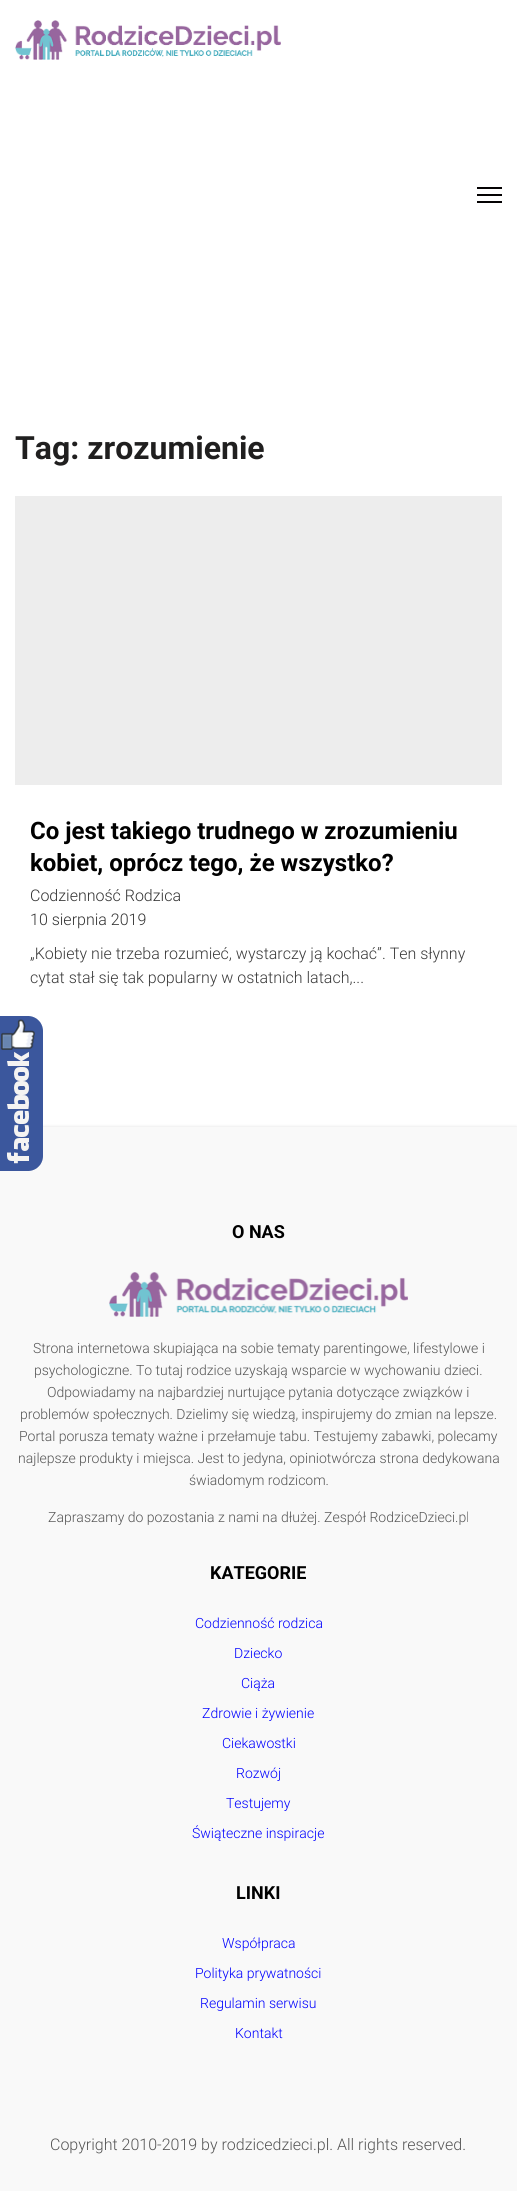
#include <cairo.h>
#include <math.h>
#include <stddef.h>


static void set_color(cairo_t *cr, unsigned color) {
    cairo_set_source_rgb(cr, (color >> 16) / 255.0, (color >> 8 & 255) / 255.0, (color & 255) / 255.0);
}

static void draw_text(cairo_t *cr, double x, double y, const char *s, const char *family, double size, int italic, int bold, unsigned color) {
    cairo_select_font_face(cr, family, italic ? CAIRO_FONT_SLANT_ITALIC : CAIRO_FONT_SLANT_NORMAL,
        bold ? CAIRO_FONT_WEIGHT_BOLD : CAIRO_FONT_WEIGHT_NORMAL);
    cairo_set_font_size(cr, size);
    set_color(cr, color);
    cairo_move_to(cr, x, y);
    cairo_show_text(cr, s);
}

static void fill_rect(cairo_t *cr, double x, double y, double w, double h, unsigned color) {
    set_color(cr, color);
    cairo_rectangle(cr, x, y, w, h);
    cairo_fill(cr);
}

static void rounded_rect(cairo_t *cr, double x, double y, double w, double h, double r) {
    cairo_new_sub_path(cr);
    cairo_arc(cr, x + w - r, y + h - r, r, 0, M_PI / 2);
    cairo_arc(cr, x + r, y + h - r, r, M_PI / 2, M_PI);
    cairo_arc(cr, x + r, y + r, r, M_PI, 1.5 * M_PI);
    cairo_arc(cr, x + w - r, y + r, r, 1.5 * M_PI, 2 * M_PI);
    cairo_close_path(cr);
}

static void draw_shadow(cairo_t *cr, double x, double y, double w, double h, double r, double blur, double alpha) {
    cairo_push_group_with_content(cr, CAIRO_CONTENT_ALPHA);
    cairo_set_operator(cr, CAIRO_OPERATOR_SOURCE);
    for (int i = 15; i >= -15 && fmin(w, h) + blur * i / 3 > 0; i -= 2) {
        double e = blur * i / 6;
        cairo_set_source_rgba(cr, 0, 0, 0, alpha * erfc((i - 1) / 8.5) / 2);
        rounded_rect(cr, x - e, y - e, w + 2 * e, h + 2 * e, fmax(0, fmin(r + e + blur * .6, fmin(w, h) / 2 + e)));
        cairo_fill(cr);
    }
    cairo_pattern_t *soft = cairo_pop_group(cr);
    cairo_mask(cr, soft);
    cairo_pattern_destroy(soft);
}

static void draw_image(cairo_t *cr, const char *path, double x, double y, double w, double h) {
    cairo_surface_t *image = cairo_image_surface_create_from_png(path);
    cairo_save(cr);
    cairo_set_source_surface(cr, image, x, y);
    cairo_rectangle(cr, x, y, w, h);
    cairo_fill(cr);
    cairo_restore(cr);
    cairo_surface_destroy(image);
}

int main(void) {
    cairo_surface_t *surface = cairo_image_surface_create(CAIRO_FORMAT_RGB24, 517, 2191);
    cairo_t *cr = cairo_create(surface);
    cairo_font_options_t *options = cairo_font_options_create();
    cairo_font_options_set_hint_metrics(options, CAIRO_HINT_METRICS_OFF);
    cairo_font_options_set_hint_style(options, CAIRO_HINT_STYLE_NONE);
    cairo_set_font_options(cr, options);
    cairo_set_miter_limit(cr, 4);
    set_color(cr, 0xFFFFFF);
    cairo_paint(cr);
    draw_image(cr, "assets/img1.png", 15, 20, 266, 40);
    fill_rect(cr, 477, 187, 25, 2, 0x040203);
    fill_rect(cr, 477, 194, 25, 2, 0x040203);
    fill_rect(cr, 477, 201, 25, 2, 0x040203);
    draw_text(cr, 15, 459, "Tag: zrozumienie", "Roboto", 32, 0, 1, 0x201F1F);
    fill_rect(cr, 15, 496, 487, 289, 0xEDEDED);
    draw_text(cr, 30, 839, "Co jest takiego trudnego w zrozumieniu", "Roboto", 24, 0, 1, 0x000000);
    draw_text(cr, 30, 871, "kobiet, oprócz tego, że wszystko?", "Roboto", 24, 0, 1, 0x000000);
    draw_text(cr, 30, 901, "Codzienność Rodzica", "Roboto Light", 16, 0, 0, 0x333333);
    draw_text(cr, 30, 925, "10 sierpnia 2019", "Roboto Light", 16, 0, 0, 0x333333);
    draw_text(cr, 30, 959, "„Kobiety nie trzeba rozumieć, wystarczy ją kochać”. Ten słynny", "Roboto Light", 16, 0, 0, 0x3A3A3A);
    draw_text(cr, 30, 983, "cytat stał się tak popularny w ostatnich latach,...", "Roboto Light", 16, 0, 0, 0x3A3A3A);
    set_color(cr, 0x000000);
    draw_shadow(cr, 0, 1127, 517, 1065, 0, 1.5, 0.13);
    fill_rect(cr, 0, 1127, 517, 1064, 0xF9F9F9);
    draw_text(cr, 232, 1238, "O NAS", "Roboto", 18, 0, 1, 0x000000);
    draw_image(cr, "assets/img2.png", 109, 1272, 299, 45);
    draw_text(cr, 33, 1353, "Strona internetowa skupiająca na sobie tematy parentingowe, lifestylowe i", "Roboto Light", 14, 0, 0, 0x555555);
    draw_text(cr, 34, 1375, "psychologiczne. To tutaj rodzice uzyskają wsparcie w wychowaniu dzieci.", "Roboto Light", 14, 0, 0, 0x555555);
    draw_text(cr, 47, 1397, "Odpowiadamy na najbardziej nurtujące pytania dotyczące związków i", "Roboto Light", 14, 0, 0, 0x555555);
    draw_text(cr, 20, 1419, "problemów społecznych. Dzielimy się wiedzą, inspirujemy do zmian na lepsze.", "Roboto Light", 14, 0, 0, 0x555555);
    draw_text(cr, 19, 1441, "Portal porusza tematy ważne i przełamuje tabu. Testujemy zabawki, polecamy", "Roboto Light", 14, 0, 0, 0x555555);
    draw_text(cr, 18, 1463, "najlepsze produkty i miejsca. Jest to jedyna, opiniotwórcza strona dedykowana", "Roboto Light", 14, 0, 0, 0x555555);
    draw_text(cr, 189, 1485, "świadomym rodzicom.", "Roboto Light", 14, 0, 0, 0x555555);
    draw_text(cr, 48, 1522, "Zapraszamy do pozostania z nami na dłużej. Zespół RodziceDzieci.pl", "Roboto Light", 14, 0, 0, 0x555555);
    draw_text(cr, 210, 1579, "KATEGORIE", "Roboto", 18, 0, 1, 0x000000);
    draw_text(cr, 195, 1628, "Codzienność rodzica", "Roboto Light", 14, 0, 0, 0x0000FF);
    draw_text(cr, 234, 1658, "Dziecko", "Roboto Light", 14, 0, 0, 0x0000FF);
    draw_text(cr, 241, 1688, "Ciąża", "Roboto Light", 14, 0, 0, 0x0000FF);
    draw_text(cr, 202, 1718, "Zdrowie i żywienie", "Roboto Light", 14, 0, 0, 0x0000FF);
    draw_text(cr, 222, 1748, "Ciekawostki", "Roboto Light", 14, 0, 0, 0x0000FF);
    draw_text(cr, 236, 1778, "Rozwój", "Roboto Light", 14, 0, 0, 0x0000FF);
    draw_text(cr, 226, 1808, "Testujemy", "Roboto Light", 14, 0, 0, 0x0000FF);
    draw_text(cr, 192, 1838, "Świąteczne inspiracje", "Roboto Light", 14, 0, 0, 0x0000FF);
    draw_text(cr, 236, 1899, "LINKI", "Roboto", 18, 0, 1, 0x000000);
    draw_text(cr, 222, 1948, "Współpraca", "Roboto Light", 14, 0, 0, 0x0000FF);
    draw_text(cr, 195, 1978, "Polityka prywatności", "Roboto Light", 14, 0, 0, 0x0000FF);
    draw_text(cr, 200, 2008, "Regulamin serwisu", "Roboto Light", 14, 0, 0, 0x0000FF);
    draw_text(cr, 235, 2038, "Kontakt", "Roboto Light", 14, 0, 0, 0x0000FF);
    draw_text(cr, 50, 2150, "Copyright 2010-2019 by rodzicedzieci.pl. All rights reserved.", "Roboto Light", 16, 0, 0, 0x555555);
    draw_image(cr, "assets/img3.png", 0, 1016, 43, 155);
    cairo_surface_write_to_png(surface, "output.png");
    cairo_font_options_destroy(options);
    cairo_destroy(cr);
    cairo_surface_destroy(surface);
    return 0;
}
